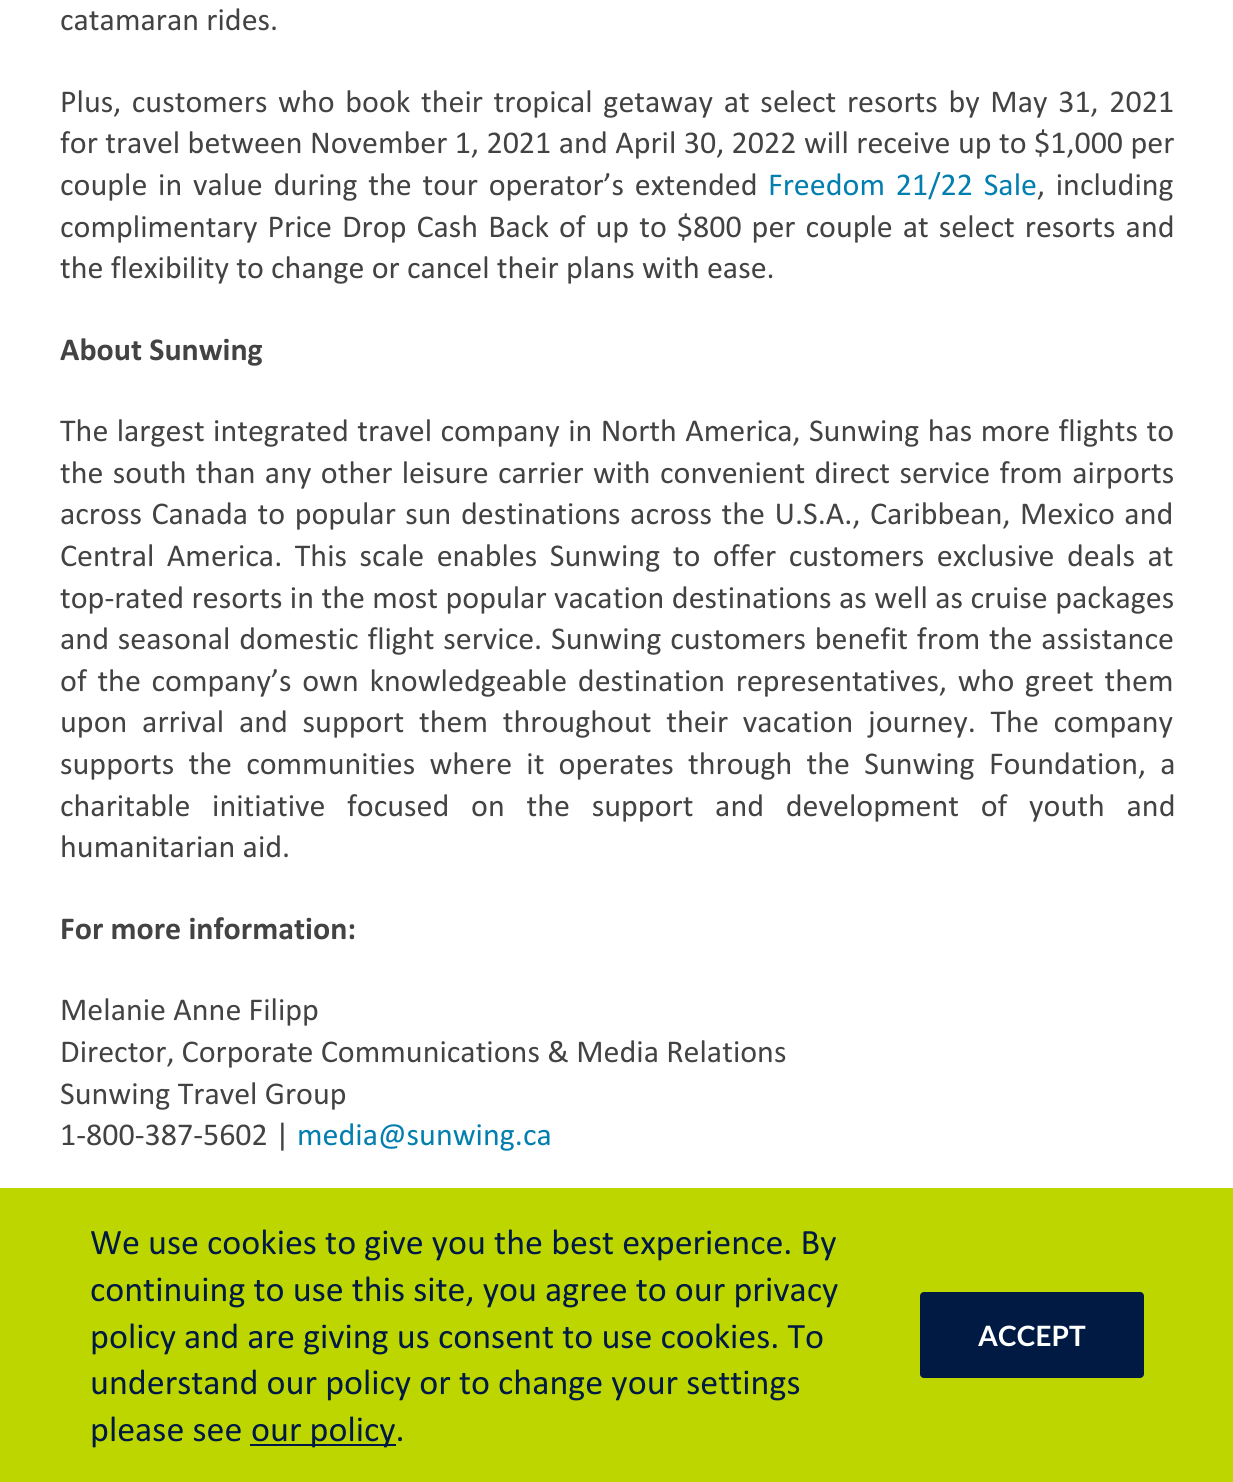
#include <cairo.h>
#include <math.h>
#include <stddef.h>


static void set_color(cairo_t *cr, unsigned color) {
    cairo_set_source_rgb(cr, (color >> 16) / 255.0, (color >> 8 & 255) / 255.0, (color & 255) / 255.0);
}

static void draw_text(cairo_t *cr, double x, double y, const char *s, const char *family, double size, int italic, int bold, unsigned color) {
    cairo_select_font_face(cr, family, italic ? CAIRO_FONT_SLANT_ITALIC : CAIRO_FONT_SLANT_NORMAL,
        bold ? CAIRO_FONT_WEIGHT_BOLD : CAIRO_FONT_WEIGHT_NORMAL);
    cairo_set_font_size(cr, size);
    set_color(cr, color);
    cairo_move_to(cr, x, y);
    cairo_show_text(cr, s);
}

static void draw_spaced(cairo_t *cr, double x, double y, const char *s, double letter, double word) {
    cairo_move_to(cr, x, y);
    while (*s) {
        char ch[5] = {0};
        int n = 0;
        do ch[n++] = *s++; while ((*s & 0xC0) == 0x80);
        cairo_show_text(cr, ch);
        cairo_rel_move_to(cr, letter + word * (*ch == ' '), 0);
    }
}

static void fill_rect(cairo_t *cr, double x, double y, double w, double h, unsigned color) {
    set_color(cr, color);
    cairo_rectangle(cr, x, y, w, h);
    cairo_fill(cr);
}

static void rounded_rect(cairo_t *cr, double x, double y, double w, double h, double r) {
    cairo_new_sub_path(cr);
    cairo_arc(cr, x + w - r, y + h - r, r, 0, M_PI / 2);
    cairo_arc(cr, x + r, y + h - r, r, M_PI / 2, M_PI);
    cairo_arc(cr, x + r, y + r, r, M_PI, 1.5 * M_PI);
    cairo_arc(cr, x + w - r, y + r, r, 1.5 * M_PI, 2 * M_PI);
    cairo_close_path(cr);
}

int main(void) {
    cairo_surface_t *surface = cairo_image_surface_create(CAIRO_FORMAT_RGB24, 1233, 1482);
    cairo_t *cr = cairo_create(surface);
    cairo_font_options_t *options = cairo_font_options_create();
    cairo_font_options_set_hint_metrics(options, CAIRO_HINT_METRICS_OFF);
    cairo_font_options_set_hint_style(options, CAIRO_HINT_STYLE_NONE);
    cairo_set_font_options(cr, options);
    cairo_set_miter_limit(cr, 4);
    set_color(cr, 0xFFFFFF);
    cairo_paint(cr);
    draw_text(cr, 60, 30, "catamaran rides.", "Calibri", 32, 0, 0, 0x434343);
    draw_spaced(cr, 60, 112, "Plus, customers who book their tropical getaway at select resorts by May 31, 2021", 0, 3.4);
    draw_spaced(cr, 60, 153, "for travel between November 1, 2021 and April 30, 2022 will receive up to $1,000 per", 0, 0.2);
    draw_spaced(cr, 60, 195, "couple in value during the tour operator’s extended", 0, 3.5);
    set_color(cr, 0x027EAF);
    draw_spaced(cr, 768, 195, "Freedom 21/22 Sale", 0, 3.5);
    set_color(cr, 0x434343);
    draw_spaced(cr, 1037, 195, ", including", 0, 3.5);
    draw_spaced(cr, 60, 237, "complimentary Price Drop Cash Back of up to $800 per couple at select resorts and", 0, 2.75);
    draw_text(cr, 60, 278, "the flexibility to change or cancel their plans with ease.", "Calibri", 32, 0, 0, 0x434343);
    draw_text(cr, 60, 360, "About Sunwing", "Calibri", 32, 0, 1, 0x434343);
    cairo_select_font_face(cr, "Calibri", CAIRO_FONT_SLANT_NORMAL, CAIRO_FONT_WEIGHT_NORMAL);
    draw_spaced(cr, 60, 441, "The largest integrated travel company in North America, Sunwing has more flights to", 0, 1.1);
    draw_spaced(cr, 60, 483, "the south than any other leisure carrier with convenient direct service from airports", 0, 2.1);
    draw_spaced(cr, 60, 524, "across Canada to popular sun destinations across the U.S.A., Caribbean, Mexico and", 0, 2.25);
    draw_spaced(cr, 60, 566, "Central America. This scale enables Sunwing to offer customers exclusive deals at", 0, 5.25);
    draw_spaced(cr, 60, 608, "top-rated resorts in the most popular vacation destinations as well as cruise packages", 0, 0.2);
    draw_spaced(cr, 60, 649, "and seasonal domestic flight service. Sunwing customers benefit from the assistance", 0, 1.6);
    draw_spaced(cr, 60, 691, "of the company’s own knowledgeable destination representatives, who greet them", 0, 3.5);
    draw_spaced(cr, 60, 732, "upon arrival and support them throughout their vacation journey. The company", 0, 7.5);
    draw_spaced(cr, 60, 774, "supports the communities where it operates through the Sunwing Foundation, a", 0, 7);
    draw_spaced(cr, 60, 816, "charitable initiative focused on the support and development of youth and", 0, 14.5);
    draw_text(cr, 60, 857, "humanitarian aid.", "Calibri", 32, 0, 0, 0x434343);
    draw_text(cr, 60, 939, "For more information:", "Calibri", 32, 0, 1, 0x434343);
    draw_text(cr, 60, 1020, "Melanie Anne Filipp", "Calibri", 32, 0, 0, 0x434343);
    draw_text(cr, 60, 1062, "Director, Corporate Communications & Media Relations", "Calibri", 32, 0, 0, 0x434343);
    draw_text(cr, 60, 1104, "Sunwing Travel Group", "Calibri", 32, 0, 0, 0x434343);
    draw_text(cr, 60, 1145, "1-800-387-5602 |", "Calibri", 32, 0, 0, 0x434343);
    draw_text(cr, 297, 1145, "media@sunwing.ca", "Calibri", 32, 0, 0, 0x027EAF);
    fill_rect(cr, 0, 1188, 1233, 294, 0xBED600);
    draw_text(cr, 90, 1254, "We use cookies to give you the best experience. By", "Calibri", 36, 0, 0, 0x001A44);
    draw_text(cr, 90, 1301, "continuing to use this site, you agree to our privacy", "Calibri", 36, 0, 0, 0x001A44);
    draw_text(cr, 90, 1348, "policy and are giving us consent to use cookies. To", "Calibri", 36, 0, 0, 0x001A44);
    draw_text(cr, 90, 1394, "understand our policy or to change your settings", "Calibri", 36, 0, 0, 0x001A44);
    draw_text(cr, 90, 1441, "please see", "Calibri", 36, 0, 0, 0x001A44);
    fill_rect(cr, 250, 1444, 146, 2, 0x001A44);
    draw_text(cr, 251, 1441, "our policy.", "Calibri", 36, 0, 0, 0x001A44);
    rounded_rect(cr, 920, 1292, 224, 86, 4);
    cairo_fill(cr);
    draw_text(cr, 978, 1346, "ACCEPT", "Lato", 28, 0, 1, 0xFFFFFF);
    cairo_surface_write_to_png(surface, "output.png");
    cairo_font_options_destroy(options);
    cairo_destroy(cr);
    cairo_surface_destroy(surface);
    return 0;
}
